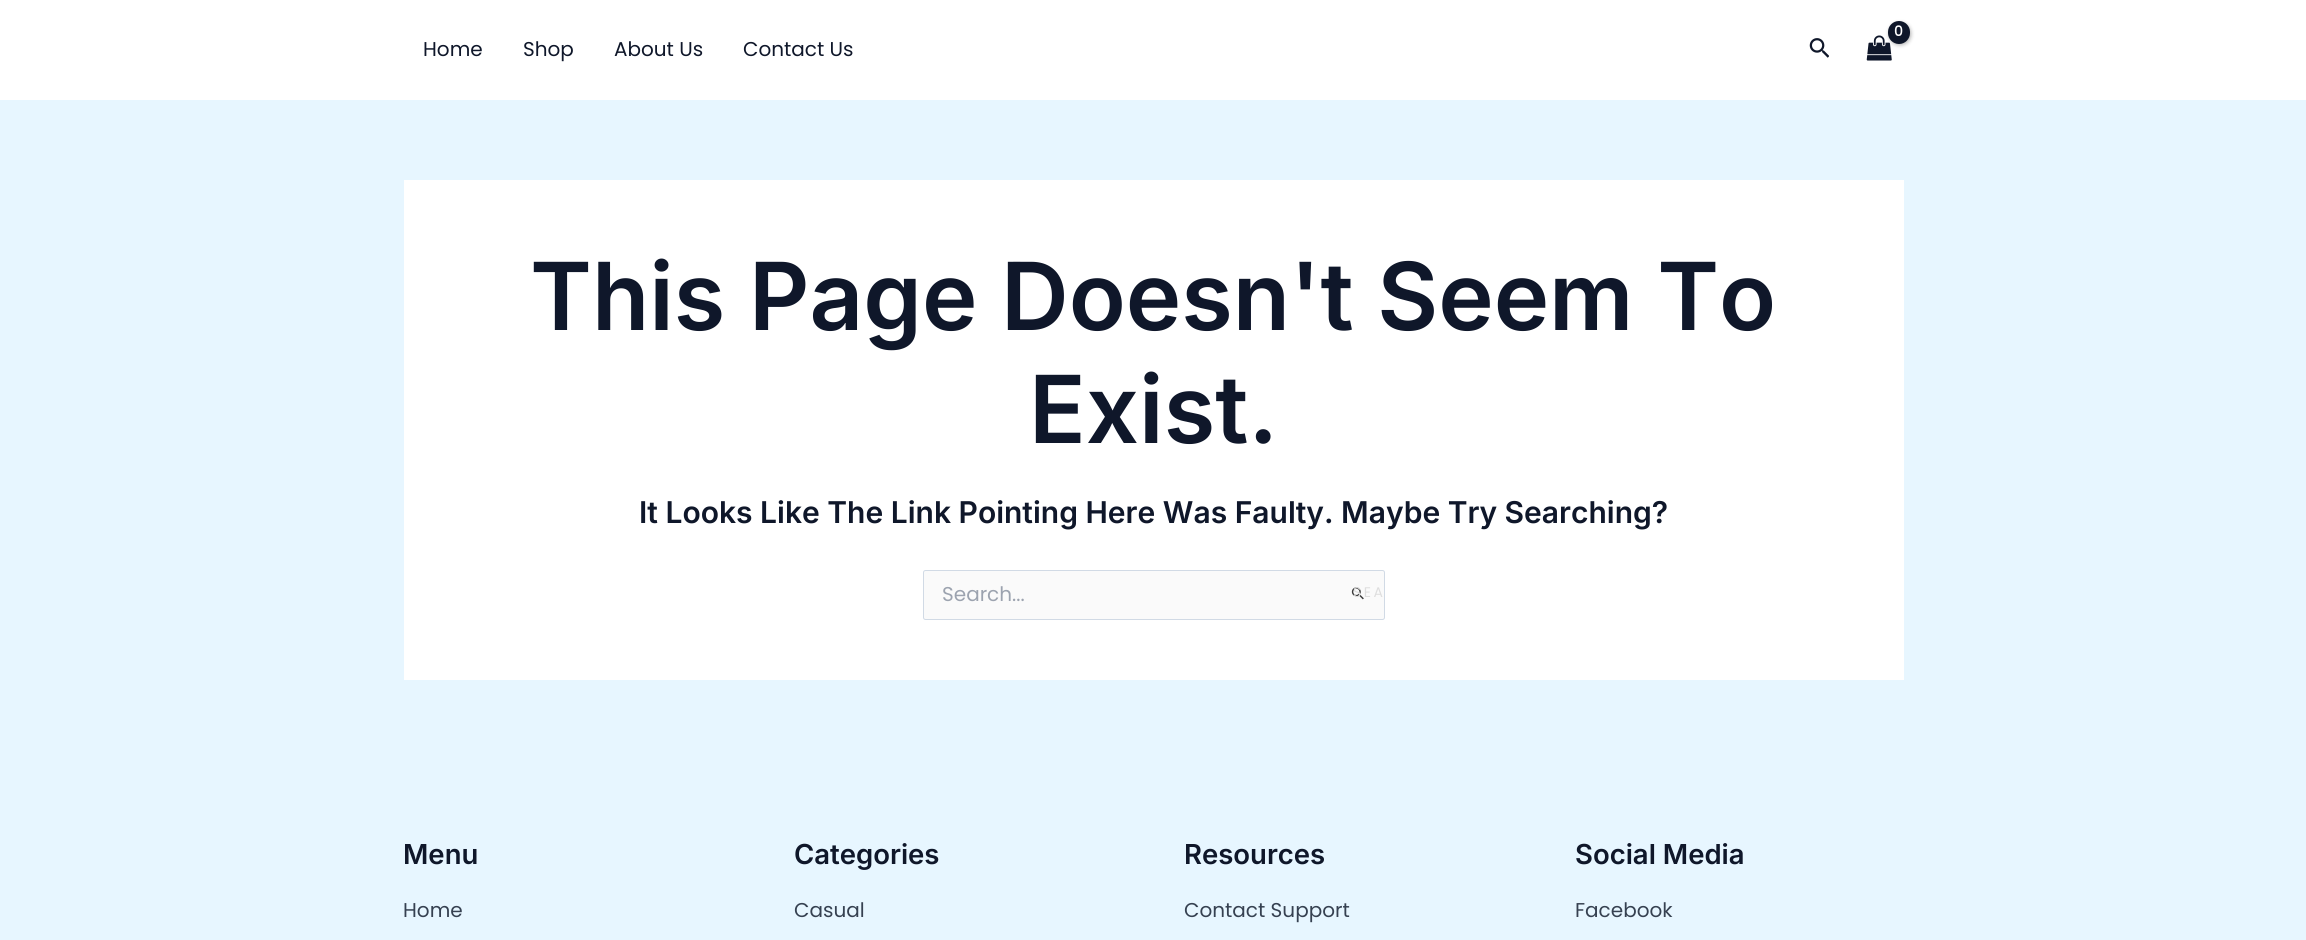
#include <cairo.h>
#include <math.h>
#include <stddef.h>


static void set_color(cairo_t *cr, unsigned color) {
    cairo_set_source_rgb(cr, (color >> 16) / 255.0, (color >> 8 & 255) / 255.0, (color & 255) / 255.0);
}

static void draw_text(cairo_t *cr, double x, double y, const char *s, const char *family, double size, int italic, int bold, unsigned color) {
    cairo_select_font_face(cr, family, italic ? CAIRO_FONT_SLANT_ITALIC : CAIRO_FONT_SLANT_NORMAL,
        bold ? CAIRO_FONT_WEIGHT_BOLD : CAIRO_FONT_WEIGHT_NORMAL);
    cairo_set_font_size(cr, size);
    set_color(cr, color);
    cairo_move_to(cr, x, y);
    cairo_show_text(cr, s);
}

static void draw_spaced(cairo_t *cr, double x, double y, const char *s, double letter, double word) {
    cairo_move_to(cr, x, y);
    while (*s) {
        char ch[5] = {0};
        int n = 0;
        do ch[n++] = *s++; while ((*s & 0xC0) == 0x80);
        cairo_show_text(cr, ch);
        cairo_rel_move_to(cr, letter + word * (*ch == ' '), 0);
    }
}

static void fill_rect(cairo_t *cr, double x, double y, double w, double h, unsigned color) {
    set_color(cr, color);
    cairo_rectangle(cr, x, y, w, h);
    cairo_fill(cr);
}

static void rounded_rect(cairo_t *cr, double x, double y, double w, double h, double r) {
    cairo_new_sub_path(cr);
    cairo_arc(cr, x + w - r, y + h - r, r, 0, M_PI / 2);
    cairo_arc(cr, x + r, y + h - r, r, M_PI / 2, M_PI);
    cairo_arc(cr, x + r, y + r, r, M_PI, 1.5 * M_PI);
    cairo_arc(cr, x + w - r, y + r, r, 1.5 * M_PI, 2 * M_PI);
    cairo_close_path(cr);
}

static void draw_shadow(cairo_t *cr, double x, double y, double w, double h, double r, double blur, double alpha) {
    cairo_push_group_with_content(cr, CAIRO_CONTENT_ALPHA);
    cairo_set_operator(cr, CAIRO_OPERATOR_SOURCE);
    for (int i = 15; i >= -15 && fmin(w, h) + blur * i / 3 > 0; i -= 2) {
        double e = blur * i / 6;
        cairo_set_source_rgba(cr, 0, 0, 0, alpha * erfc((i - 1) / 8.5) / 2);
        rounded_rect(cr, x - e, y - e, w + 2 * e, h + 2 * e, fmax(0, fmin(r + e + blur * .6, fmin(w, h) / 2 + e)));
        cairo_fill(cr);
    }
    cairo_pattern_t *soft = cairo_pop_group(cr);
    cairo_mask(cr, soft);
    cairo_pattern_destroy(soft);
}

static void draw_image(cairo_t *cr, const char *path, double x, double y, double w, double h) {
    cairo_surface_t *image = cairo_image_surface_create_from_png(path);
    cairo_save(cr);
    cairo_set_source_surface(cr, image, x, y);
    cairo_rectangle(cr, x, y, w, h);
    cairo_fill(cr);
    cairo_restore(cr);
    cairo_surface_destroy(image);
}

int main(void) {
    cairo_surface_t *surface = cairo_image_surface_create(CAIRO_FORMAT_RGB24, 2306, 940);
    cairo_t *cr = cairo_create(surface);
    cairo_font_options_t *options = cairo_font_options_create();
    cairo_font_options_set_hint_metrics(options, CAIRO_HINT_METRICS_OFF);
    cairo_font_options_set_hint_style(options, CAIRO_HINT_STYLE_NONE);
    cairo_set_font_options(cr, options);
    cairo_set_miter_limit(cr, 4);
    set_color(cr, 0xE7F6FF);
    cairo_paint(cr);
    fill_rect(cr, 0, 0, 2306, 100, 0xFFFFFF);
    draw_image(cr, "assets/img1.png", 1866, 35, 26, 26);
    set_color(cr, 0x000000);
    draw_shadow(cr, 1889, 23, 22, 22, 11, 2, 0.3);
    set_color(cr, 0x0F172A);
    rounded_rect(cr, 1888, 21, 22, 23, 11);
    cairo_fill(cr);
    cairo_select_font_face(cr, "Poppins", CAIRO_FONT_SLANT_NORMAL, CAIRO_FONT_WEIGHT_BOLD);
    cairo_set_font_size(cr, 14);
    set_color(cr, 0xFFFFFF);
    draw_spaced(cr, 1894, 36, "0", -1, 0);
    draw_image(cr, "assets/img2.png", 1809, 38, 20, 20);
    draw_text(cr, 423, 56, "Home", "Poppins", 20, 0, 0, 0x0F172A);
    draw_text(cr, 523, 56, "Shop", "Poppins", 20, 0, 0, 0x0F172A);
    draw_text(cr, 614, 56, "About Us", "Poppins", 20, 0, 0, 0x0F172A);
    draw_text(cr, 743, 56, "Contact Us", "Poppins", 20, 0, 0, 0x0F172A);
    fill_rect(cr, 404, 180, 1500, 500, 0xFFFFFF);
    draw_text(cr, 530, 330, "This Page Doesn't Seem To", "Inter SemiBold", 93.75, 0, 0, 0x0F172A);
    draw_text(cr, 1029, 443, "Exist.", "Inter SemiBold", 93.75, 0, 0, 0x0F172A);
    draw_text(cr, 639, 523, "It Looks Like The Link Pointing Here Was Faulty. Maybe Try Searching?", "Inter SemiBold", 30, 0, 0, 0x0F172A);
    set_color(cr, 0xFAFAFA);
    rounded_rect(cr, 923.5, 570.5, 461, 49, 2);
    cairo_fill_preserve(cr);
    set_color(cr, 0xD1DAE5);
    cairo_set_line_width(cr, 1);
    cairo_stroke(cr);
    draw_text(cr, 942, 601, "Search...", "Poppins", 20, 0, 0, 0x9CA3AF);
    draw_image(cr, "assets/img3.png", 1351, 587, 13, 13);
    cairo_set_font_size(cr, 14);
    set_color(cr, 0xDEDEDE);
    draw_spaced(cr, 1353, 597, "SEA", 2.5, 0);
    draw_text(cr, 403, 864, "Menu", "Inter SemiBold", 27.5, 0, 0, 0x0F172A);
    draw_text(cr, 403, 917, "Home", "Poppins", 20, 0, 0, 0x364151);
    draw_text(cr, 794, 864, "Categories", "Inter SemiBold", 27.5, 0, 0, 0x0F172A);
    draw_text(cr, 794, 917, "Casual", "Poppins", 20, 0, 0, 0x364151);
    draw_text(cr, 1184, 864, "Resources", "Inter SemiBold", 27.5, 0, 0, 0x0F172A);
    draw_text(cr, 1184, 917, "Contact Support", "Poppins", 20, 0, 0, 0x364151);
    draw_text(cr, 1575, 864, "Social Media", "Inter SemiBold", 27.5, 0, 0, 0x0F172A);
    draw_text(cr, 1575, 917, "Facebook", "Poppins", 20, 0, 0, 0x364151);
    cairo_surface_write_to_png(surface, "output.png");
    cairo_font_options_destroy(options);
    cairo_destroy(cr);
    cairo_surface_destroy(surface);
    return 0;
}
